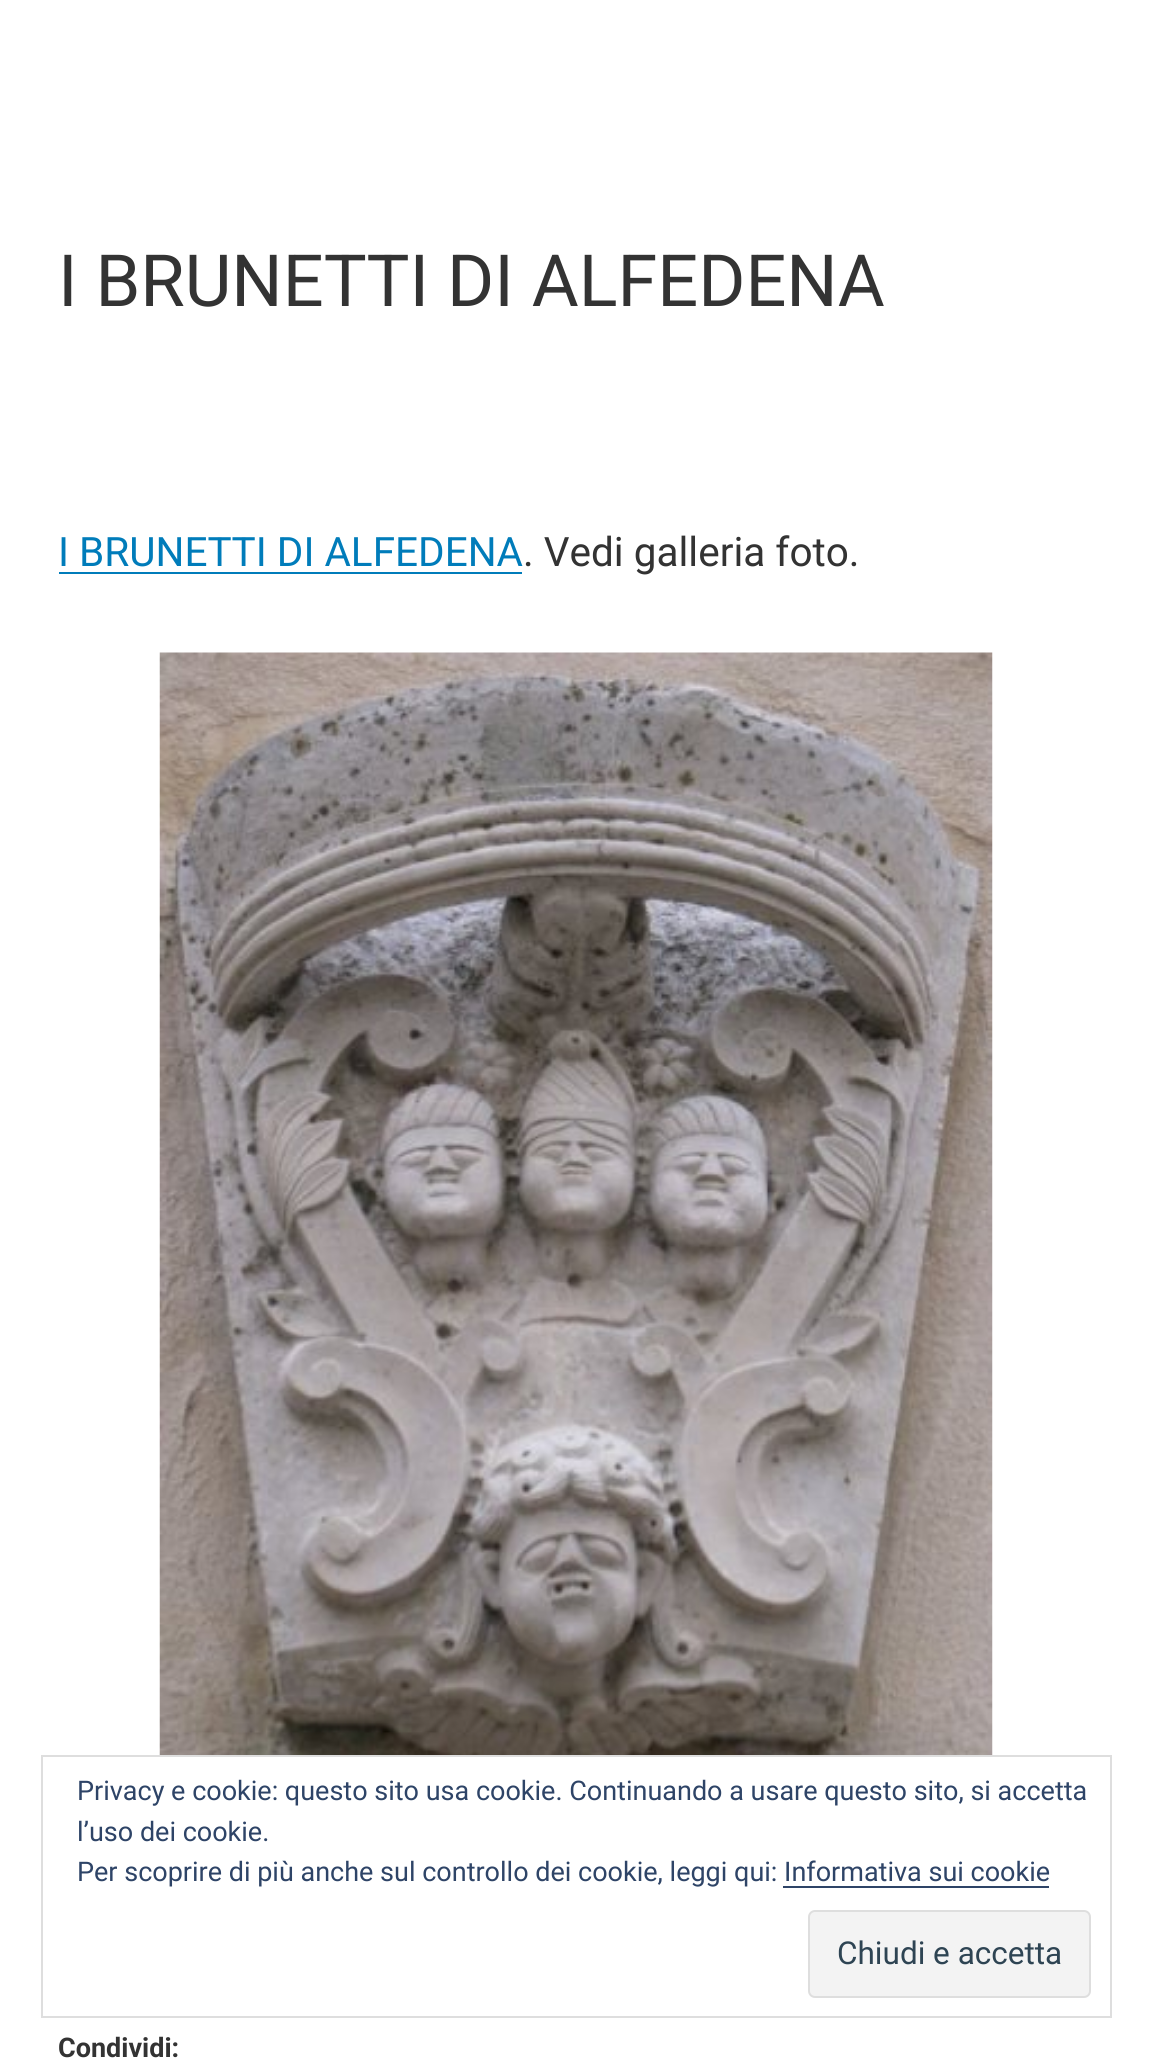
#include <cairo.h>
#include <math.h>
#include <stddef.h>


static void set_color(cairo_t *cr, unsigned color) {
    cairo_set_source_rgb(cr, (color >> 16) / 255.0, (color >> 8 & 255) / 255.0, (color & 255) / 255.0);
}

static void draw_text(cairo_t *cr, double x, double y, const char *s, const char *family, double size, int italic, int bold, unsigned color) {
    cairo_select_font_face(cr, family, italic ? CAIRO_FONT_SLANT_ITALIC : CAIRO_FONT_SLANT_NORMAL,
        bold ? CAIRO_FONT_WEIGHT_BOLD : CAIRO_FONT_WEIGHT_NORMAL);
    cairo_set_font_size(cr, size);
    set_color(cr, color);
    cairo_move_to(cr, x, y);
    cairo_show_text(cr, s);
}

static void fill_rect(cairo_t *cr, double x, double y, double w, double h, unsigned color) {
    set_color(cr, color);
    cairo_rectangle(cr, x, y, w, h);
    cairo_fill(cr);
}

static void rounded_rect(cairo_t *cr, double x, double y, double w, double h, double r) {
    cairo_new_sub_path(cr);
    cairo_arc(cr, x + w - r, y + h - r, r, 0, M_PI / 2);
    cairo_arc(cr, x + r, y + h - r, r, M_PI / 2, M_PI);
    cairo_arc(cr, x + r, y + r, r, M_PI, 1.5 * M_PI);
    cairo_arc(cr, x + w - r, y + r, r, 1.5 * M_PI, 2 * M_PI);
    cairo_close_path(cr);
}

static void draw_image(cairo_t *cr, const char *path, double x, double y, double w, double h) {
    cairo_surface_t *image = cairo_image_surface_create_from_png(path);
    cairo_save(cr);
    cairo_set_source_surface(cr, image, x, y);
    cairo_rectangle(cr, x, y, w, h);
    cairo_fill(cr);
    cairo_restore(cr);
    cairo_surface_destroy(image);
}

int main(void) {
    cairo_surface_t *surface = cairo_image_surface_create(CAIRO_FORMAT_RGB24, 1150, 2058);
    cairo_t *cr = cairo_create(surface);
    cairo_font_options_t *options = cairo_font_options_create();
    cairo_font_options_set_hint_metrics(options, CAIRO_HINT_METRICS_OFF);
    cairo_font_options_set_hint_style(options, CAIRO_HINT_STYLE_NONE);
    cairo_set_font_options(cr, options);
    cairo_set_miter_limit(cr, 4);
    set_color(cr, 0xFFFFFF);
    cairo_paint(cr);
    draw_text(cr, 58, 306, "I BRUNETTI DI ALFEDENA", "Roboto", 72, 0, 0, 0x333333);
    draw_text(cr, 58, 566, "I BRUNETTI DI ALFEDENA", "Roboto", 40.5, 0, 0, 0x007CBA);
    fill_rect(cr, 59, 572, 463, 2, 0x007CBA);
    draw_text(cr, 523, 566, ". Vedi galleria foto.", "Roboto", 40.5, 0, 0, 0x333333);
    draw_image(cr, "assets/img1.png", 159, 652, 834, 1103);
    draw_text(cr, 58, 2057, "Condividi:", "Roboto", 27, 0, 1, 0x333333);
    cairo_rectangle(cr, 42, 1756, 1069, 261);
    set_color(cr, 0xDEDEDE);
    cairo_stroke(cr);
    draw_text(cr, 77, 1800, "Privacy e cookie: questo sito usa cookie. Continuando a usare questo sito, si accetta", "Roboto", 27, 0, 0, 0x2E4467);
    draw_text(cr, 77, 1841, "l’uso dei cookie.", "Roboto", 27, 0, 0, 0x2E4467);
    draw_text(cr, 77, 1881, "Per scoprire di più anche sul controllo dei cookie, leggi qui: Informativa sui cookie", "Roboto", 27, 0, 0, 0x2E4467);
    fill_rect(cr, 783, 1886, 266, 2, 0x2E4467);
    set_color(cr, 0xF3F3F3);
    rounded_rect(cr, 809, 1911, 281, 86, 6);
    cairo_fill_preserve(cr);
    set_color(cr, 0xDEDEDE);
    cairo_stroke(cr);
    draw_text(cr, 837, 1964, "Chiudi e accetta", "Roboto", 31.5, 0, 0, 0x2E4453);
    cairo_surface_write_to_png(surface, "output.png");
    cairo_font_options_destroy(options);
    cairo_destroy(cr);
    cairo_surface_destroy(surface);
    return 0;
}
